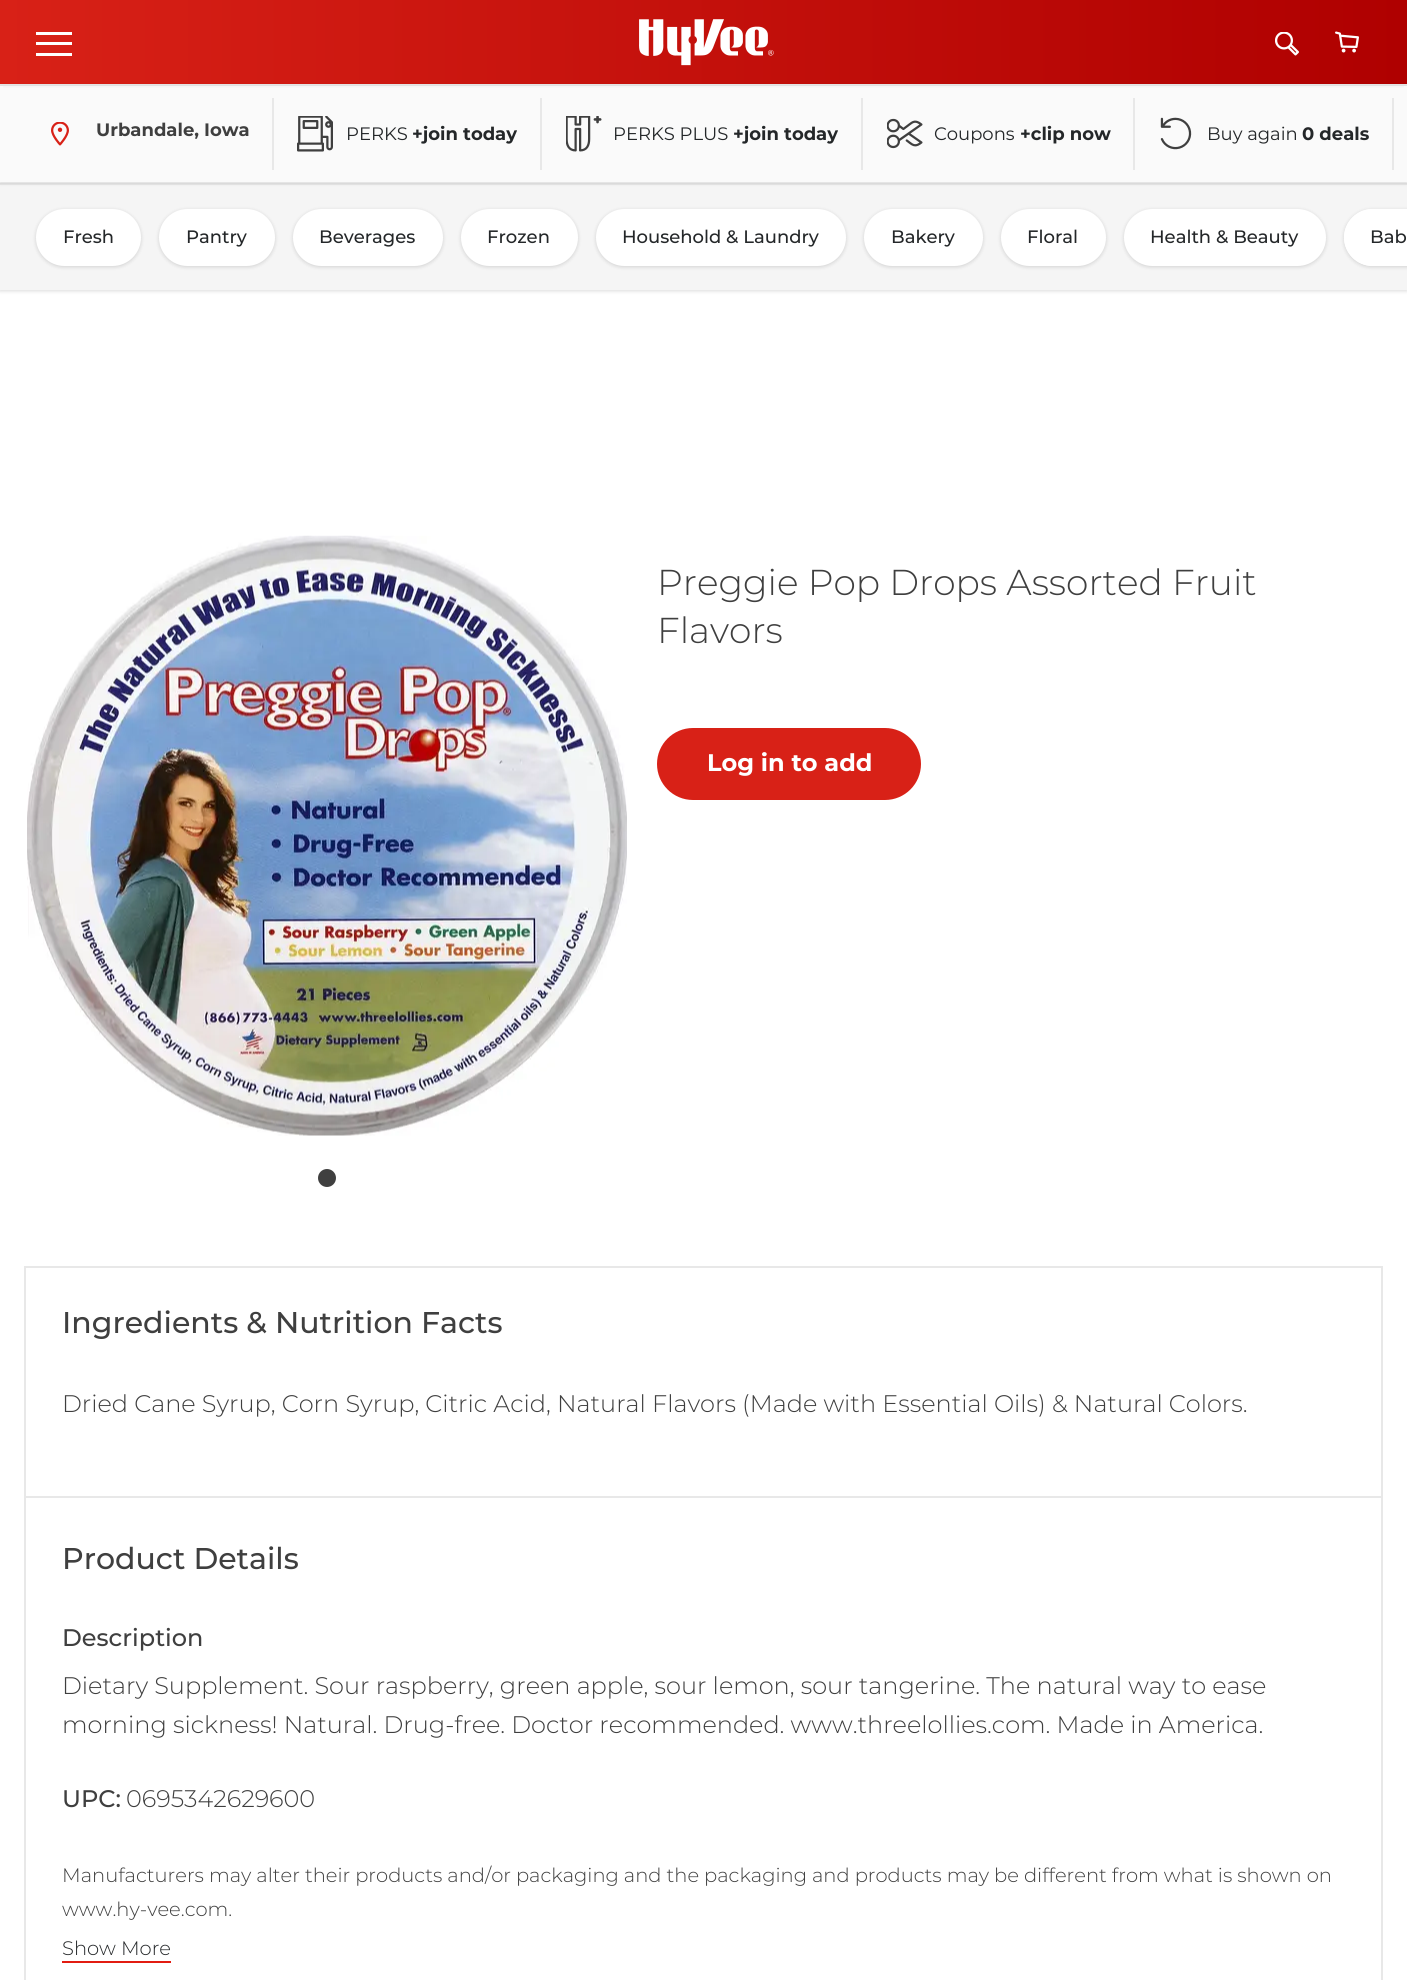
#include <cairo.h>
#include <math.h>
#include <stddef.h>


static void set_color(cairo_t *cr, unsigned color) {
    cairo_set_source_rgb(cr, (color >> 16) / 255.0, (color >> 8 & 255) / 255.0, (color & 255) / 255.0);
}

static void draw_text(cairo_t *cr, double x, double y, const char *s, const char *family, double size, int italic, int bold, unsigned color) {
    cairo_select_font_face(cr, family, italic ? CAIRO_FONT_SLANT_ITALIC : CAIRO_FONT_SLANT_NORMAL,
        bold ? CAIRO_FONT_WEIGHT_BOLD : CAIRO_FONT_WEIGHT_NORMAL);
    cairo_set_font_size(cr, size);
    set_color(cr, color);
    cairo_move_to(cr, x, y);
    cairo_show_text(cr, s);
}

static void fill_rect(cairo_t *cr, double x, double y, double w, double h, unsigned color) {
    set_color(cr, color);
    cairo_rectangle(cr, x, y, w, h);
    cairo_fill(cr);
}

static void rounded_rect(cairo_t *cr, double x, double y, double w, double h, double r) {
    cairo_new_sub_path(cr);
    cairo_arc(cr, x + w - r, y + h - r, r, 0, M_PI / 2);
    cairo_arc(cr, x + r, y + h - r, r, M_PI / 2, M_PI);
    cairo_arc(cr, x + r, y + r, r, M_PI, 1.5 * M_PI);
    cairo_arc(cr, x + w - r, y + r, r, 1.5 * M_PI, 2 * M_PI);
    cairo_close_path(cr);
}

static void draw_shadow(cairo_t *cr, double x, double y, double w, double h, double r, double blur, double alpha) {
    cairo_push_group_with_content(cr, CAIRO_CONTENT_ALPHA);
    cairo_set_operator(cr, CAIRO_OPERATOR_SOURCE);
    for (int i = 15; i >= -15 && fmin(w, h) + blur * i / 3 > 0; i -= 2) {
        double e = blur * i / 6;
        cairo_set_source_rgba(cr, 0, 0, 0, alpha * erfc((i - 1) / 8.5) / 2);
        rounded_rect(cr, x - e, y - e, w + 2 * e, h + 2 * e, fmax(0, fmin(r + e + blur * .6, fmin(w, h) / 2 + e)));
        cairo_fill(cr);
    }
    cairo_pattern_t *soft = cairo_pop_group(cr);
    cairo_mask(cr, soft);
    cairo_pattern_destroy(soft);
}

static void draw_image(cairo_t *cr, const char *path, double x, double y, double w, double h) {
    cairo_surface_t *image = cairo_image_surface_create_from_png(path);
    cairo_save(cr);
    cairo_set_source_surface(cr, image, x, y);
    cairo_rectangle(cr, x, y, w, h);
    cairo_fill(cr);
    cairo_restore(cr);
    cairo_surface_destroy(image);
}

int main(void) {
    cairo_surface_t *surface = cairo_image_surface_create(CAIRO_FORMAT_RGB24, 1407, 1980);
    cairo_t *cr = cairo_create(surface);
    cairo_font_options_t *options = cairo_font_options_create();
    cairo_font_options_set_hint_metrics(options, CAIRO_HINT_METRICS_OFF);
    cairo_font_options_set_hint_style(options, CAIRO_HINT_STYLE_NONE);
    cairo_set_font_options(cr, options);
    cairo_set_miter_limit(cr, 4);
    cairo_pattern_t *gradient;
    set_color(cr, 0xFFFFFF);
    cairo_paint(cr);
    gradient = cairo_pattern_create_linear(0, 42, 1407, 42);
    cairo_pattern_add_color_stop_rgba(gradient, 0, 0.847, 0.129, 0.09, 1);
    cairo_pattern_add_color_stop_rgba(gradient, 1, 0.686, 0, 0, 1);
    cairo_set_source(cr, gradient);
    cairo_pattern_destroy(gradient);
    cairo_rectangle(cr, 0, 0, 1407, 84);
    cairo_fill(cr);
    cairo_save(cr);
    cairo_rectangle(cr, 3, 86, 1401, 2);
    cairo_clip(cr);
    set_color(cr, 0x000000);
    draw_shadow(cr, 3, 6, 1401, 78, 0, 3, 0.2);
    cairo_restore(cr);
    fill_rect(cr, 36, 42, 36, 3, 0xFFFFFF);
    fill_rect(cr, 36, 32, 36, 3, 0xFFFFFF);
    fill_rect(cr, 36, 53, 36, 3, 0xFFFFFF);
    draw_image(cr, "assets/img1.png", 639, 19, 135, 47);
    draw_image(cr, "assets/img2.png", 1275, 32, 24, 24);
    draw_image(cr, "assets/img3.png", 1335, 31, 24, 22);
    fill_rect(cr, 0, 84, 1407, 2, 0xE8E8E8);
    set_color(cr, 0x000000);
    draw_shadow(cr, 0, 185, 1407, 106, 0, 2, 0.15);
    fill_rect(cr, 0, 185, 1407, 105, 0xF5F5F5);
    fill_rect(cr, 0, 183, 1407, 2, 0xE8E8E8);
    cairo_save(cr);
    cairo_set_fill_rule(cr, CAIRO_FILL_RULE_EVEN_ODD);
    cairo_new_path(cr);
    cairo_move_to(cr, 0, 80);
    cairo_line_to(cr, 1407, 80);
    cairo_line_to(cr, 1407, 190);
    cairo_line_to(cr, 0, 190);
    cairo_close_path(cr);
    cairo_move_to(cr, 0, 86);
    cairo_line_to(cr, 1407, 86);
    cairo_line_to(cr, 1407, 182);
    cairo_line_to(cr, 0, 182);
    cairo_close_path(cr);
    cairo_clip(cr);
    set_color(cr, 0x000000);
    draw_shadow(cr, 0, 87, 1407, 96, 0, 2, 0.15);
    cairo_restore(cr);
    cairo_set_source_rgba(cr, 0.961, 0.961, 0.961, 0.5);
    cairo_rectangle(cr, 0, 86, 1407, 96);
    cairo_fill(cr);
    draw_image(cr, "assets/img4.png", 51, 122, 18, 24);
    draw_text(cr, 96, 136, "Urbandale, Iowa", "Montserrat", 18, 0, 1, 0x3F3F3F);
    fill_rect(cr, 272, 98, 2, 72, 0xE8E8E8);
    draw_image(cr, "assets/img5.png", 297, 116, 36, 36);
    draw_text(cr, 346, 140, "PERKS", "Montserrat", 18, 0, 0, 0x242729);
    draw_text(cr, 412, 140, "+join today", "Montserrat", 18, 0, 1, 0x242729);
    fill_rect(cr, 540, 98, 2, 72, 0xE8E8E8);
    draw_image(cr, "assets/img6.png", 566, 116, 36, 36);
    draw_text(cr, 613, 140, "PERKS PLUS", "Montserrat", 18, 0, 0, 0x242729);
    draw_text(cr, 733, 140, "+join today", "Montserrat", 18, 0, 1, 0x242729);
    fill_rect(cr, 861, 98, 2, 72, 0xE8E8E8);
    draw_image(cr, "assets/img7.png", 887, 118, 36, 31);
    draw_text(cr, 934, 140, "Coupons", "Montserrat", 18, 0, 0, 0x242729);
    draw_text(cr, 1020, 140, "+clip now", "Montserrat", 18, 0, 1, 0x242729);
    fill_rect(cr, 1133, 98, 2, 72, 0xE8E8E8);
    draw_image(cr, "assets/img8.png", 1160, 117, 32, 33);
    draw_text(cr, 1207, 140, "Buy again", "Montserrat", 18, 0, 0, 0x242729);
    draw_text(cr, 1302, 140, "0 deals", "Montserrat", 18, 0, 1, 0x242729);
    fill_rect(cr, 1392, 98, 2, 72, 0xE8E8E8);
    set_color(cr, 0x000000);
    draw_shadow(cr, 36, 210, 105, 57, 28.5, 2, 0.15);
    set_color(cr, 0xFFFFFF);
    rounded_rect(cr, 37.5, 210.5, 102, 54, 27);
    cairo_fill_preserve(cr);
    cairo_set_line_width(cr, 3);
    cairo_stroke(cr);
    draw_text(cr, 63, 243, "Fresh", "Montserrat Medium", 18, 0, 0, 0x242729);
    set_color(cr, 0x000000);
    draw_shadow(cr, 159, 210, 116, 57, 28.5, 2, 0.15);
    set_color(cr, 0xFFFFFF);
    rounded_rect(cr, 160.5, 210.5, 113, 54, 27);
    cairo_fill_preserve(cr);
    cairo_stroke(cr);
    draw_text(cr, 186, 243, "Pantry", "Montserrat Medium", 18, 0, 0, 0x242729);
    set_color(cr, 0x000000);
    draw_shadow(cr, 293, 210, 150, 57, 28.5, 2, 0.15);
    set_color(cr, 0xFFFFFF);
    rounded_rect(cr, 294.5, 210.5, 147, 54, 27);
    cairo_fill_preserve(cr);
    cairo_stroke(cr);
    draw_text(cr, 319, 243, "Beverages", "Montserrat Medium", 18, 0, 0, 0x242729);
    set_color(cr, 0x000000);
    draw_shadow(cr, 461, 210, 117, 57, 28.5, 2, 0.15);
    set_color(cr, 0xFFFFFF);
    rounded_rect(cr, 462.5, 210.5, 114, 54, 27);
    cairo_fill_preserve(cr);
    cairo_stroke(cr);
    draw_text(cr, 487, 243, "Frozen", "Montserrat Medium", 18, 0, 0, 0x242729);
    set_color(cr, 0x000000);
    draw_shadow(cr, 596, 210, 250, 57, 28.5, 2, 0.15);
    set_color(cr, 0xFFFFFF);
    rounded_rect(cr, 597.5, 210.5, 247, 54, 27);
    cairo_fill_preserve(cr);
    cairo_stroke(cr);
    draw_text(cr, 622, 243, "Household & Laundry", "Montserrat Medium", 18, 0, 0, 0x242729);
    set_color(cr, 0x000000);
    draw_shadow(cr, 864, 210, 119, 57, 28.5, 2, 0.15);
    set_color(cr, 0xFFFFFF);
    rounded_rect(cr, 865.5, 210.5, 116, 54, 27);
    cairo_fill_preserve(cr);
    cairo_stroke(cr);
    draw_text(cr, 891, 243, "Bakery", "Montserrat Medium", 18, 0, 0, 0x242729);
    set_color(cr, 0x000000);
    draw_shadow(cr, 1001, 210, 105, 57, 28.5, 2, 0.15);
    set_color(cr, 0xFFFFFF);
    rounded_rect(cr, 1002.5, 210.5, 102, 54, 27);
    cairo_fill_preserve(cr);
    cairo_stroke(cr);
    draw_text(cr, 1027, 243, "Floral", "Montserrat Medium", 18, 0, 0, 0x242729);
    set_color(cr, 0x000000);
    draw_shadow(cr, 1124, 210, 202, 57, 28.5, 2, 0.15);
    set_color(cr, 0xFFFFFF);
    rounded_rect(cr, 1125.5, 210.5, 199, 54, 27);
    cairo_fill_preserve(cr);
    cairo_stroke(cr);
    draw_text(cr, 1150, 243, "Health & Beauty", "Montserrat Medium", 18, 0, 0, 0x242729);
    set_color(cr, 0x000000);
    draw_shadow(cr, 1344, 210, 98, 57, 28.5, 2, 0.15);
    set_color(cr, 0xFFFFFF);
    cairo_new_path(cr);
    cairo_move_to(cr, 1372.5, 209);
    cairo_line_to(cr, 1407, 209);
    cairo_line_to(cr, 1407, 266);
    cairo_line_to(cr, 1372.5, 266);
    cairo_curve_to(cr, 1357, 266, 1344, 253, 1344, 237.5);
    cairo_curve_to(cr, 1344, 222, 1357, 209, 1372.5, 209);
    cairo_close_path(cr);
    cairo_fill(cr);
    rounded_rect(cr, 1345.5, 210.5, 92, 54, 27);
    cairo_stroke(cr);
    draw_text(cr, 1370, 243, "Bab", "Montserrat Medium", 18, 0, 0, 0x242729);
    draw_image(cr, "assets/img9.png", 27, 535, 600, 601);
    set_color(cr, 0x3F3F3F);
    cairo_arc(cr, 327, 1178, 9, 0, 2 * M_PI);
    cairo_fill(cr);
    draw_text(cr, 657, 595, "Preggie Pop Drops Assorted Fruit", "Montserrat Light", 36, 0, 0, 0x3F3F3F);
    draw_text(cr, 657, 643, "Flavors", "Montserrat Light", 36, 0, 0, 0x3F3F3F);
    set_color(cr, 0xD82117);
    rounded_rect(cr, 657, 728, 264, 72, 36);
    cairo_fill(cr);
    draw_text(cr, 707, 771, "Log in to add", "Montserrat", 24, 0, 1, 0xFFFFFF);
    cairo_rectangle(cr, 25, 1267, 1357, 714);
    set_color(cr, 0xE8E8E8);
    cairo_set_line_width(cr, 2);
    cairo_stroke(cr);
    fill_rect(cr, 26, 1496, 1356, 2, 0xE8E8E8);
    draw_text(cr, 62, 1333, "Ingredients & Nutrition Facts", "Montserrat Medium", 30, 0, 0, 0x3F3F3F);
    draw_text(cr, 62, 1412, "Dried Cane Syrup, Corn Syrup, Citric Acid, Natural Flavors (Made with Essential Oils) & Natural Colors.", "Montserrat Light", 24, 0, 0, 0x3F3F3F);
    draw_text(cr, 62, 1569, "Product Details", "Montserrat Medium", 30, 0, 0, 0x3F3F3F);
    draw_text(cr, 62, 1646, "Description", "Montserrat Medium", 24, 0, 0, 0x3F3F3F);
    draw_text(cr, 62, 1694, "Dietary Supplement. Sour raspberry, green apple, sour lemon, sour tangerine. The natural way to ease", "Montserrat Light", 24, 0, 0, 0x3F3F3F);
    draw_text(cr, 62, 1733, "morning sickness! Natural. Drug-free. Doctor recommended. www.threelollies.com. Made in America.", "Montserrat Light", 24, 0, 0, 0x3F3F3F);
    draw_text(cr, 62, 1807, "UPC:", "Montserrat Medium", 24, 0, 0, 0x3F3F3F);
    draw_text(cr, 126, 1807, "0695342629600", "Montserrat Light", 24, 0, 0, 0x3F3F3F);
    draw_text(cr, 62, 1882, "Manufacturers may alter their products and/or packaging and the packaging and products may be different from what is shown on", "Montserrat Light", 19.5, 0, 0, 0x3F3F3F);
    draw_text(cr, 62, 1916, "www.hy-vee.com.", "Montserrat Light", 19.5, 0, 0, 0x3F3F3F);
    fill_rect(cr, 62, 1961, 109, 2, 0xE21C11);
    draw_text(cr, 62, 1955, "Show More", "Montserrat Light", 19.5, 0, 0, 0x242729);
    cairo_surface_write_to_png(surface, "output.png");
    cairo_font_options_destroy(options);
    cairo_destroy(cr);
    cairo_surface_destroy(surface);
    return 0;
}
